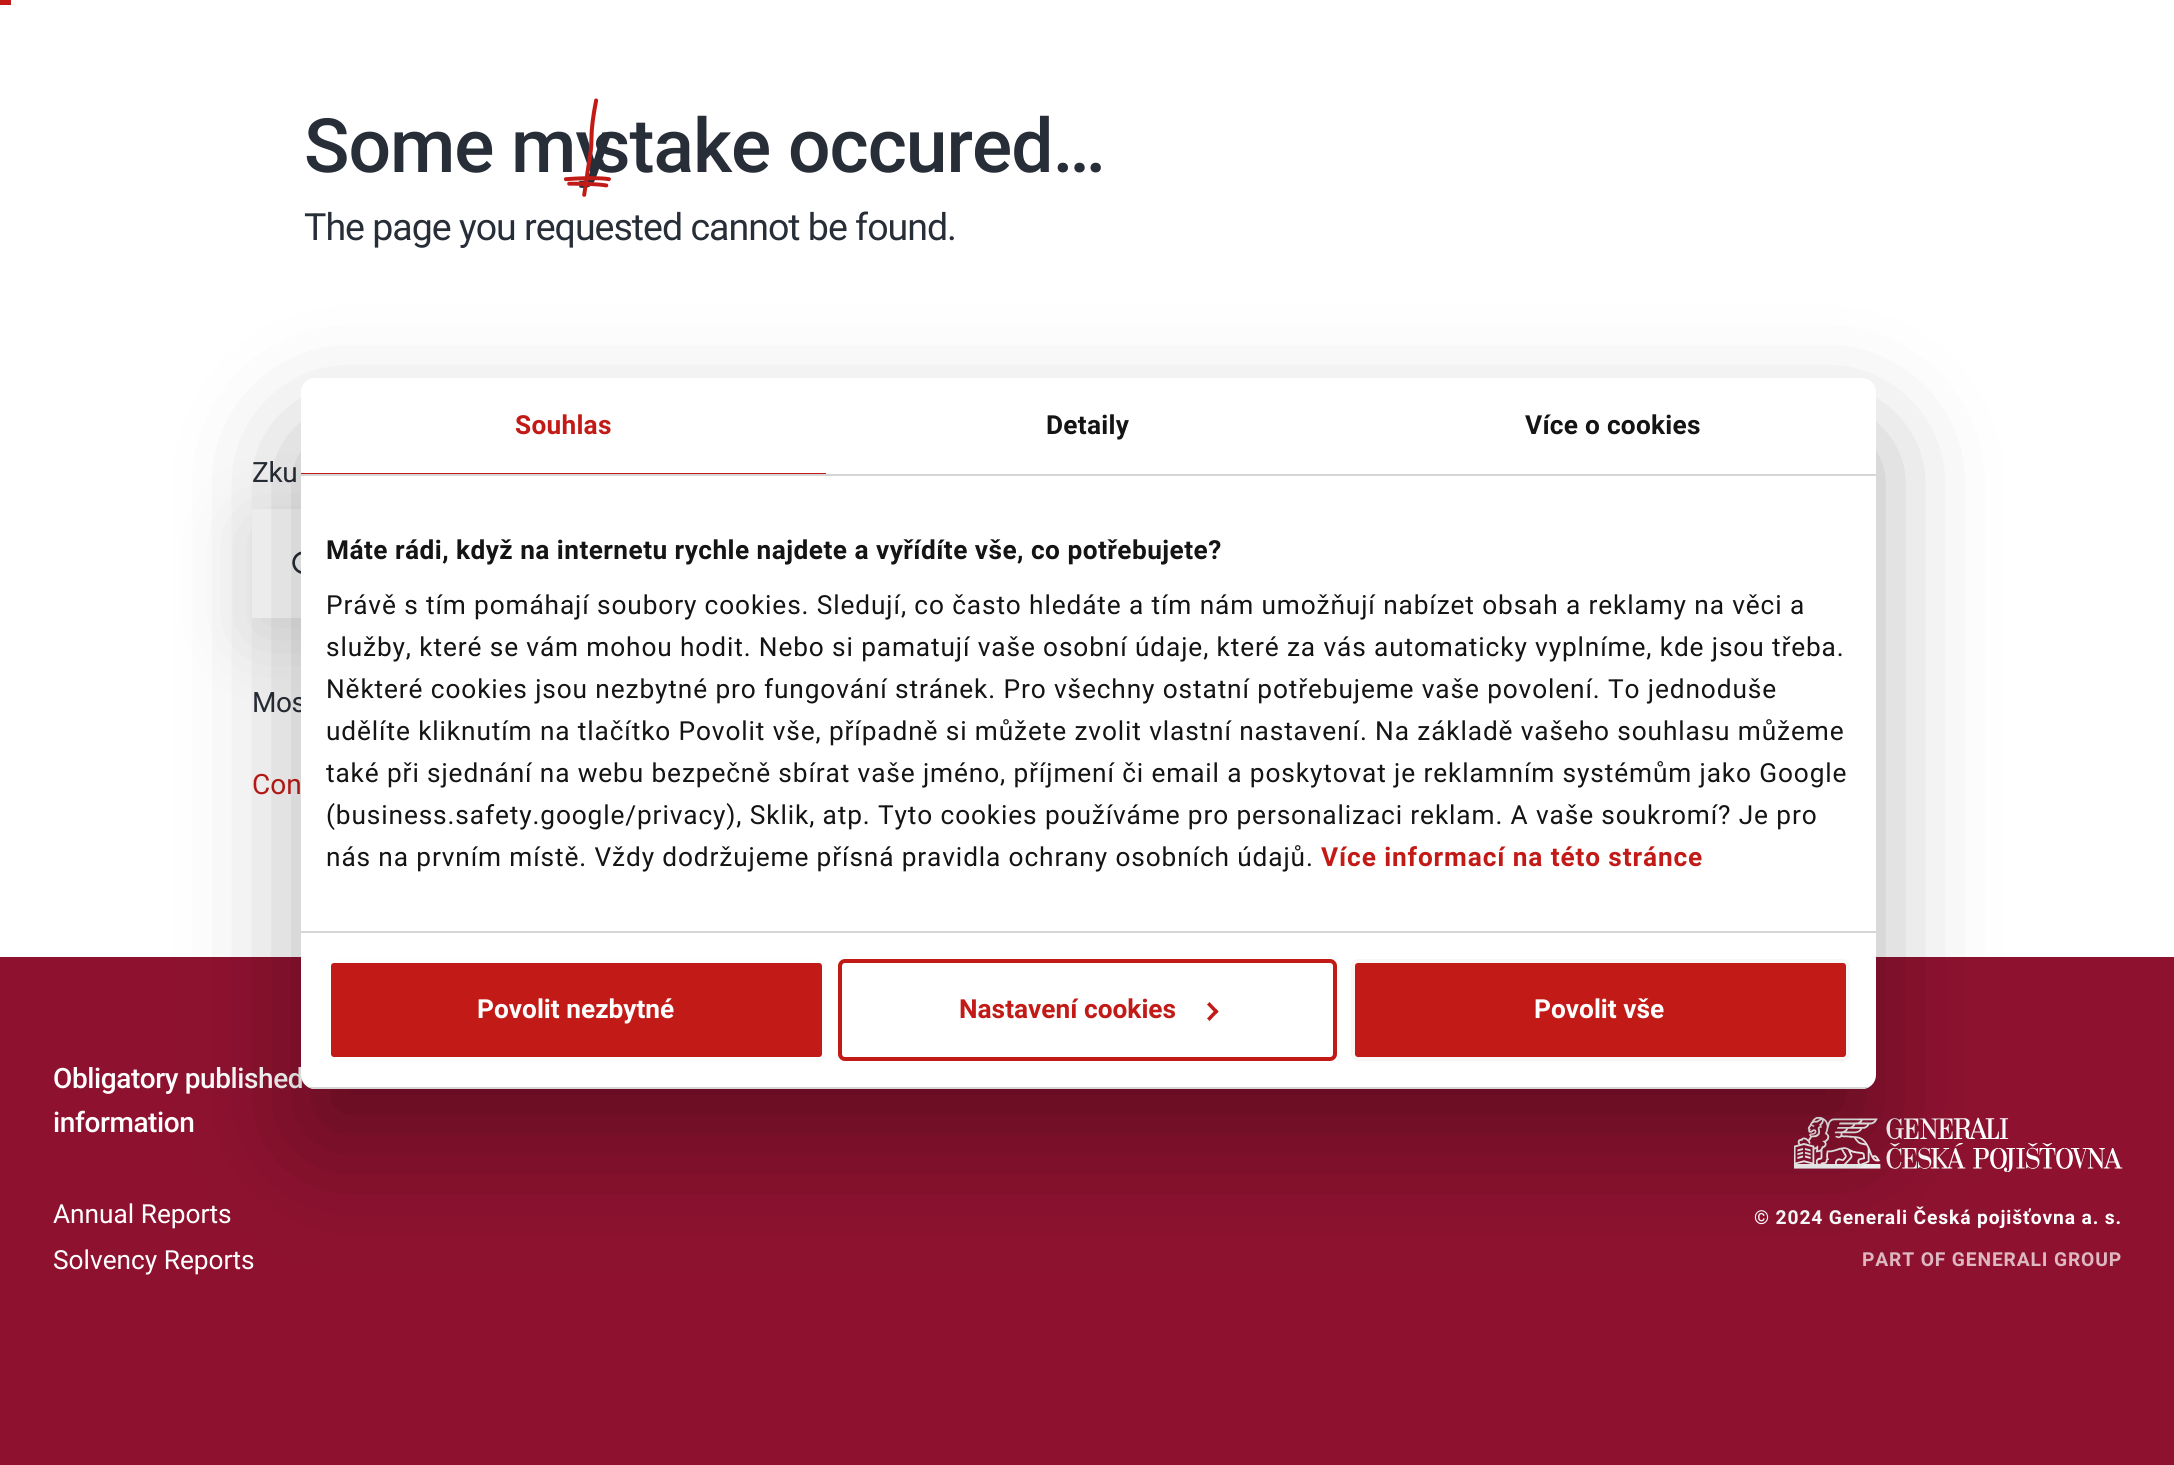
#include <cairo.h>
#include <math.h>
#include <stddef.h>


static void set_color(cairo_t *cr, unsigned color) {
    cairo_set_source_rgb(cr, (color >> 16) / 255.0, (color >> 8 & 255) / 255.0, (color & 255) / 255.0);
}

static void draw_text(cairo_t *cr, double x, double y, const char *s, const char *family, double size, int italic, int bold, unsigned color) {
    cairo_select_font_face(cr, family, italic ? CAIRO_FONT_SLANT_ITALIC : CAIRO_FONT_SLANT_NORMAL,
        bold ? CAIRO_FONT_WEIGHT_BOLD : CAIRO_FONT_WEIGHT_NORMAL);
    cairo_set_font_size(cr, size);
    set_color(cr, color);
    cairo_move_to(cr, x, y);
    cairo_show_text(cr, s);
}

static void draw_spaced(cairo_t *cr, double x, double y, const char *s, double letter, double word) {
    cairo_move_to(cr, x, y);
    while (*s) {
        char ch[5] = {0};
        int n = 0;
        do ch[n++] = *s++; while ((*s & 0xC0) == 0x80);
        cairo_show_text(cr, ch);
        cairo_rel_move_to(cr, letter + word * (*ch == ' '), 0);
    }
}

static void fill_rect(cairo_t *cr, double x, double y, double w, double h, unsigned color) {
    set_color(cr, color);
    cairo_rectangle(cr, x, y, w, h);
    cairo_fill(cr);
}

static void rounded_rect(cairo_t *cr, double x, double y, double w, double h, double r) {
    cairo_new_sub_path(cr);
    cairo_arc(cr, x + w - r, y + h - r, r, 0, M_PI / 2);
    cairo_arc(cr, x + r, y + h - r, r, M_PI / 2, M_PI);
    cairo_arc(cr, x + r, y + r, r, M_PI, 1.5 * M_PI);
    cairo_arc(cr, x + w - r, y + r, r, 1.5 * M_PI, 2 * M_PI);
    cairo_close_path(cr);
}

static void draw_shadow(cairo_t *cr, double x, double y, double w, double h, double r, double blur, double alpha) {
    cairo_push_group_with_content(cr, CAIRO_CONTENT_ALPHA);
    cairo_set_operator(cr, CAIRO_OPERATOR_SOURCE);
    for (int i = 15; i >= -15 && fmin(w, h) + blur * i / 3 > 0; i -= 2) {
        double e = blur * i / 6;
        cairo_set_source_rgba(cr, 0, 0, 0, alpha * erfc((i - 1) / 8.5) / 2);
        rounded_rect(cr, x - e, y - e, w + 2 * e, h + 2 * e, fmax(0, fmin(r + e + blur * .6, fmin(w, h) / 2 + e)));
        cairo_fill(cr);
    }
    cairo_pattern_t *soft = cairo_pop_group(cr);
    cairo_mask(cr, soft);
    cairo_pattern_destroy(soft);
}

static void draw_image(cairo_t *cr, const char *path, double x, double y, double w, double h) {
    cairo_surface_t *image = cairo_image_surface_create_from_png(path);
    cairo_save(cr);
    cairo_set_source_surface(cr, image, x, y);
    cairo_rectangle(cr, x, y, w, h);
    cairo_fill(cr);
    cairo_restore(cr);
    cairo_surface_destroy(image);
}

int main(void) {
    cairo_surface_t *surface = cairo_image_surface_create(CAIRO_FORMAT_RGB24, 2174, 1465);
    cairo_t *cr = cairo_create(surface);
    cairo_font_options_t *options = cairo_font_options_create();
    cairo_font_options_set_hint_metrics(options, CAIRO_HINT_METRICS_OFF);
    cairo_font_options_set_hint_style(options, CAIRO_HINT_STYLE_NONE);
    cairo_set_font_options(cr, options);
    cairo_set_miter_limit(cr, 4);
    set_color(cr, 0x8E1230);
    cairo_paint(cr);
    fill_rect(cr, 11, 0, 2163, 5, 0xFFFFFF);
    fill_rect(cr, 0, 0, 11, 5, 0xC21B17);
    fill_rect(cr, 0, 5, 2174, 952, 0xFFFFFF);
    cairo_select_font_face(cr, "Roboto Medium", CAIRO_FONT_SLANT_NORMAL, CAIRO_FONT_WEIGHT_NORMAL);
    cairo_set_font_size(cr, 75);
    set_color(cr, 0x282E38);
    draw_spaced(cr, 304, 172, "Some my", -1, 0);
    draw_spaced(cr, 592, 172, "stake occured…", -1, 0);
    draw_image(cr, "assets/img1.png", 563, 98, 48, 99);
    cairo_select_font_face(cr, "Roboto", CAIRO_FONT_SLANT_NORMAL, CAIRO_FONT_WEIGHT_NORMAL);
    cairo_set_font_size(cr, 37.5);
    draw_spaced(cr, 304, 240, "The page you requested cannot be found.", -1, 0);
    set_color(cr, 0x000000);
    draw_shadow(cr, 252, 525, 910, 109, 0, 38.5, 0.11);
    fill_rect(cr, 252, 509, 49, 109, 0xFFFFFF);
    draw_image(cr, "assets/img2.png", 292, 551, 9, 23);
    cairo_set_font_size(cr, 28);
    set_color(cr, 0x282E38);
    draw_spaced(cr, 252, 482, "Zku", -0.4, 0);
    draw_spaced(cr, 252, 712, "Mos", -0.4, 0);
    draw_text(cr, 252, 794, "Con", "Roboto", 28, 0, 0, 0xC21B17);
    cairo_select_font_face(cr, "Roboto Medium", CAIRO_FONT_SLANT_NORMAL, CAIRO_FONT_WEIGHT_NORMAL);
    set_color(cr, 0xFFFFFF);
    draw_spaced(cr, 53, 1088, "Obligatory published", -0.4, 0);
    draw_spaced(cr, 53, 1132, "information", -0.4, 0);
    draw_text(cr, 53, 1223, "Annual Reports", "Roboto", 26.25, 0, 0, 0xFFFFFF);
    draw_text(cr, 53, 1269, "Solvency Reports", "Roboto", 26.25, 0, 0, 0xFFFFFF);
    draw_image(cr, "assets/img3.png", 1794, 1116, 329, 56);
    cairo_select_font_face(cr, "Roboto", CAIRO_FONT_SLANT_NORMAL, CAIRO_FONT_WEIGHT_BOLD);
    cairo_set_font_size(cr, 19.25);
    draw_spaced(cr, 1754, 1224, "© 2024 Generali Česká pojišťovna a. s.", 0.85, 0);
    set_color(cr, 0xDDB8C1);
    draw_spaced(cr, 1862, 1266, "PART OF GENERALI GROUP", 0.85, 0);
    set_color(cr, 0x000000);
    draw_shadow(cr, 301, 434, 1575, 711, 14, 59.5, 0.3);
    set_color(cr, 0xFFFFFF);
    rounded_rect(cr, 301, 378, 1575, 711, 14);
    cairo_fill(cr);
    fill_rect(cr, 301, 474, 1575, 2, 0xD6D6D6);
    fill_rect(cr, 301, 473, 525, 1, 0xC21B17);
    cairo_set_font_size(cr, 26.25);
    draw_spaced(cr, 515, 434, "Souhlas", 0.25, 0);
    set_color(cr, 0x141414);
    draw_spaced(cr, 1046, 434, "Detaily", 0.25, 0);
    draw_spaced(cr, 1525, 434, "Více o cookies", 0.25, 0);
    fill_rect(cr, 301, 931, 1575, 2, 0xD6D6D6);
    set_color(cr, 0x141414);
    draw_spaced(cr, 326, 559, "Máte rádi, když na internetu rychle najdete a vyřídíte vše, co potřebujete?", 0.45, 0);
    cairo_select_font_face(cr, "Roboto", CAIRO_FONT_SLANT_NORMAL, CAIRO_FONT_WEIGHT_NORMAL);
    draw_spaced(cr, 326, 614, "Právě s tím pomáhají soubory cookies. Sledují, co často hledáte a tím nám umožňují nabízet obsah a reklamy na věci a", 0.88, 0);
    draw_spaced(cr, 326, 656, "služby, které se vám mohou hodit. Nebo si pamatují vaše osobní údaje, které za vás automaticky vyplníme, kde jsou třeba.", 0.88, 0);
    draw_spaced(cr, 326, 698, "Některé cookies jsou nezbytné pro fungování stránek. Pro všechny ostatní potřebujeme vaše povolení. To jednoduše", 0.88, 0);
    draw_spaced(cr, 326, 740, "udělíte kliknutím na tlačítko Povolit vše, případně si můžete zvolit vlastní nastavení. Na základě vašeho souhlasu můžeme", 0.88, 0);
    draw_spaced(cr, 326, 782, "také při sjednání na webu bezpečně sbírat vaše jméno, příjmení či email a poskytovat je reklamním systémům jako Google", 0.88, 0);
    draw_spaced(cr, 326, 824, "(business.safety.google/privacy), Sklik, atp. Tyto cookies používáme pro personalizaci reklam. A vaše soukromí? Je pro", 0.88, 0);
    draw_spaced(cr, 326, 866, "nás na prvním místě. Vždy dodržujeme přísná pravidla ochrany osobních údajů.", 0.88, 0);
    cairo_select_font_face(cr, "Roboto", CAIRO_FONT_SLANT_NORMAL, CAIRO_FONT_WEIGHT_BOLD);
    set_color(cr, 0xC21B17);
    draw_spaced(cr, 1321, 866, "Více informací na této stránce", 0.88, 0);
    cairo_save(cr);
    rounded_rect(cr, 301, 378, 1575, 711, 14);
    cairo_clip(cr);
    fill_rect(cr, 301, 1087, 1575, 2, 0xD6D6D6);
    cairo_restore(cr);
    rounded_rect(cr, 329, 961, 495, 98, 5);
    cairo_fill_preserve(cr);
    set_color(cr, 0xFCFDFD);
    cairo_set_line_width(cr, 4);
    cairo_stroke(cr);
    draw_text(cr, 477, 1018, "Povolit nezbytné", "Roboto", 26.25, 0, 1, 0xFFFFFF);
    rounded_rect(cr, 840, 961, 495, 98, 5);
    set_color(cr, 0xC21B17);
    cairo_stroke(cr);
    draw_text(cr, 959, 1018, "Nastavení cookies", "Roboto", 26.25, 0, 1, 0xC21B17);
    cairo_new_path(cr);
    cairo_move_to(cr, 1209.5, 1002);
    cairo_line_to(cr, 1218.5, 1011.5);
    cairo_line_to(cr, 1216, 1014);
    cairo_line_to(cr, 1207, 1004.5);
    cairo_close_path(cr);
    cairo_fill(cr);
    cairo_new_path(cr);
    cairo_move_to(cr, 1216, 1009);
    cairo_line_to(cr, 1218.5, 1011.5);
    cairo_line_to(cr, 1209.5, 1021);
    cairo_line_to(cr, 1207, 1018.5);
    cairo_close_path(cr);
    cairo_fill(cr);
    rounded_rect(cr, 1353, 961, 495, 98, 5);
    cairo_fill_preserve(cr);
    set_color(cr, 0xF9F6F6);
    cairo_stroke(cr);
    draw_text(cr, 1534, 1018, "Povolit vše", "Roboto", 26.25, 0, 1, 0xFFFFFF);
    cairo_surface_write_to_png(surface, "output.png");
    cairo_font_options_destroy(options);
    cairo_destroy(cr);
    cairo_surface_destroy(surface);
    return 0;
}
